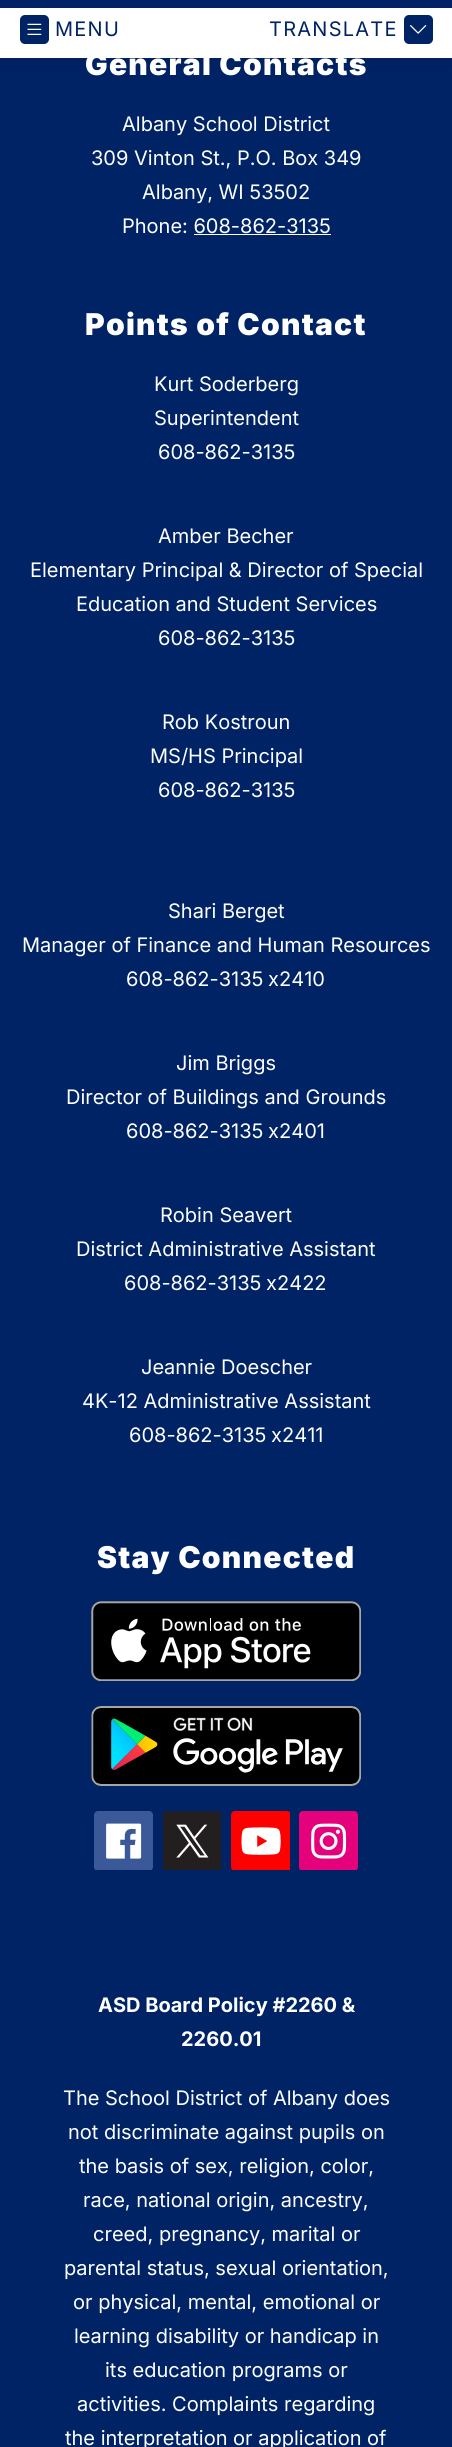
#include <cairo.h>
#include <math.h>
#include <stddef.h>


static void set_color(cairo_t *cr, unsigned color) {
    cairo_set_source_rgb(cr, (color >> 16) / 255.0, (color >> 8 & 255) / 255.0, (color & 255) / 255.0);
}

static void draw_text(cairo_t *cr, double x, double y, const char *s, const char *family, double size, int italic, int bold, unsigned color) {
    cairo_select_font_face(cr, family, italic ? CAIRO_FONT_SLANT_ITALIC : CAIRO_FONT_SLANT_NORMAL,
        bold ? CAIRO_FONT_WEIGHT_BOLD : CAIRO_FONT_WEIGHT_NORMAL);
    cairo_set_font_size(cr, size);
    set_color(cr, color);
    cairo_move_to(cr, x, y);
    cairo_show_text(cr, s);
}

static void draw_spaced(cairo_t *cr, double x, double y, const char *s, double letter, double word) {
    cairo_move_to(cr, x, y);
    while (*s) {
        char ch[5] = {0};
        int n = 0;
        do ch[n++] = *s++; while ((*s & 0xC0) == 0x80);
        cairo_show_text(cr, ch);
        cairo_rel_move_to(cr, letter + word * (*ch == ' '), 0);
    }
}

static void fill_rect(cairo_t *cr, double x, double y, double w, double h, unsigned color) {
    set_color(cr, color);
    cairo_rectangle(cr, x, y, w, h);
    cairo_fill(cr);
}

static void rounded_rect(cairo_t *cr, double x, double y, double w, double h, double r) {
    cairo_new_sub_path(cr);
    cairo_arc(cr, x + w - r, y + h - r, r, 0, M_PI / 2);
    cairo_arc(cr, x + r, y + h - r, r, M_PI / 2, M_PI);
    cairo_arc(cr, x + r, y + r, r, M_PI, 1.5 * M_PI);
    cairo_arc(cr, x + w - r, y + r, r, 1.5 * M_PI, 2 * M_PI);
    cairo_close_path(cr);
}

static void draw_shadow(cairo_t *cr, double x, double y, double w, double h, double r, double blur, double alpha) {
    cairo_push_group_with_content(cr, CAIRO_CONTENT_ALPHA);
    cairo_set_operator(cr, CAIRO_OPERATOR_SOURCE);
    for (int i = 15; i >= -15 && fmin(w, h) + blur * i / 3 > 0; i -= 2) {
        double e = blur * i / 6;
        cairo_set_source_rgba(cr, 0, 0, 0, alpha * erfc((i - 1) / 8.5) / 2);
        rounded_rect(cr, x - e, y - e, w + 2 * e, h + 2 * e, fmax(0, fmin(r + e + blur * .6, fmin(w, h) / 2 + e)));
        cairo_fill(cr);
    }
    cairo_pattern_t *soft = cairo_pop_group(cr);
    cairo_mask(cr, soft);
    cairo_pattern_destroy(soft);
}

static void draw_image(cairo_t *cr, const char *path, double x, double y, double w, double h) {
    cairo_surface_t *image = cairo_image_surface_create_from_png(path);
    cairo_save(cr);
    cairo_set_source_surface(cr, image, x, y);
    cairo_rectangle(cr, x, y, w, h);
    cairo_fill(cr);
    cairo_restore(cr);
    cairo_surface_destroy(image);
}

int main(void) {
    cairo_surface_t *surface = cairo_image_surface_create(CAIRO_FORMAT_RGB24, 452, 2447);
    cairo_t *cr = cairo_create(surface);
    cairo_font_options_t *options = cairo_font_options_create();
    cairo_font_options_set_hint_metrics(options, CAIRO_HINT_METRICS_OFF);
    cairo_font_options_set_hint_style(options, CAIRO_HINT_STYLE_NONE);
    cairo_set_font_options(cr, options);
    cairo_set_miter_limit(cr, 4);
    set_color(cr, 0x002366);
    cairo_paint(cr);
    set_color(cr, 0x000000);
    draw_shadow(cr, 0, 5, 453, 58, 0, 6, 0.1);
    fill_rect(cr, 0, 8, 452, 50, 0xFFFFFF);
    fill_rect(cr, 0, 1, 452, 7, 0x002366);
    draw_image(cr, "assets/img1.png", 20, 15, 29, 29);
    cairo_select_font_face(cr, "Inter", CAIRO_FONT_SLANT_NORMAL, CAIRO_FONT_WEIGHT_NORMAL);
    cairo_set_font_size(cr, 20);
    draw_spaced(cr, 55, 36, "MENU", 1.25, 0);
    draw_spaced(cr, 269, 36, "TRANSLATE", 1.25, 0);
    draw_image(cr, "assets/img2.png", 404, 15, 29, 29);
    cairo_select_font_face(cr, "Inter Black", CAIRO_FONT_SLANT_NORMAL, CAIRO_FONT_WEIGHT_NORMAL);
    cairo_set_font_size(cr, 30);
    set_color(cr, 0xFFFFFF);
    draw_spaced(cr, 85, 75, "General Contacts", 1.25, 0);
    draw_text(cr, 122, 131, "Albany School District", "Inter", 20, 0, 0, 0xFFFFFF);
    draw_text(cr, 91, 165, "309 Vinton St., P.O. Box 349", "Inter", 20, 0, 0, 0xFFFFFF);
    draw_text(cr, 142, 199, "Albany, WI 53502", "Inter", 20, 0, 0, 0xFFFFFF);
    draw_text(cr, 122, 233, "Phone: 608-862-3135", "Inter", 20, 0, 0, 0xFFFFFF);
    fill_rect(cr, 194, 234, 137, 1, 0xFFFFFF);
    cairo_select_font_face(cr, "Inter Black", CAIRO_FONT_SLANT_NORMAL, CAIRO_FONT_WEIGHT_NORMAL);
    cairo_set_font_size(cr, 30);
    draw_spaced(cr, 85, 335, "Points of Contact", 1.25, 0);
    draw_text(cr, 154, 391, "Kurt Soderberg", "Inter", 20, 0, 0, 0xFFFFFF);
    draw_text(cr, 154, 425, "Superintendent", "Inter", 20, 0, 0, 0xFFFFFF);
    draw_text(cr, 158, 459, "608-862-3135", "Inter", 20, 0, 0, 0xFFFFFF);
    draw_text(cr, 158, 543, "Amber Becher", "Inter", 20, 0, 0, 0xFFFFFF);
    draw_text(cr, 30, 577, "Elementary Principal & Director of Special", "Inter", 20, 0, 0, 0xFFFFFF);
    draw_text(cr, 76, 611, "Education and Student Services", "Inter", 20, 0, 0, 0xFFFFFF);
    draw_text(cr, 158, 645, "608-862-3135", "Inter", 20, 0, 0, 0xFFFFFF);
    draw_text(cr, 162, 729, "Rob Kostroun", "Inter", 20, 0, 0, 0xFFFFFF);
    draw_text(cr, 150, 763, "MS/HS Principal", "Inter", 20, 0, 0, 0xFFFFFF);
    draw_text(cr, 158, 797, "608-862-3135", "Inter", 20, 0, 0, 0xFFFFFF);
    draw_text(cr, 168, 918, "Shari Berget", "Inter", 20, 0, 0, 0xFFFFFF);
    draw_text(cr, 22, 952, "Manager of Finance and Human Resources", "Inter", 20, 0, 0, 0xFFFFFF);
    draw_spaced(cr, 126, 986, "608-862-3135 x2410", 0, -1);
    draw_text(cr, 176, 1070, "Jim Briggs", "Inter", 20, 0, 0, 0xFFFFFF);
    draw_text(cr, 66, 1104, "Director of Buildings and Grounds", "Inter", 20, 0, 0, 0xFFFFFF);
    draw_spaced(cr, 126, 1138, "608-862-3135 x2401", 0, -1);
    draw_text(cr, 160, 1222, "Robin Seavert", "Inter", 20, 0, 0, 0xFFFFFF);
    draw_text(cr, 76, 1256, "District Administrative Assistant", "Inter", 20, 0, 0, 0xFFFFFF);
    draw_spaced(cr, 124, 1290, "608-862-3135 x2422", 0, -1);
    draw_text(cr, 141, 1374, "Jeannie Doescher", "Inter", 20, 0, 0, 0xFFFFFF);
    draw_text(cr, 82, 1408, "4K-12 Administrative Assistant", "Inter", 20, 0, 0, 0xFFFFFF);
    draw_spaced(cr, 129, 1442, "608-862-3135 x2411", 0, -1);
    cairo_select_font_face(cr, "Inter Black", CAIRO_FONT_SLANT_NORMAL, CAIRO_FONT_WEIGHT_NORMAL);
    cairo_set_font_size(cr, 30);
    draw_spaced(cr, 97, 1568, "Stay Connected", 1.25, 0);
    draw_image(cr, "assets/img3.png", 91, 1601, 270, 80);
    draw_image(cr, "assets/img4.png", 91, 1706, 270, 80);
    draw_image(cr, "assets/img5.png", 94, 1811, 59, 59);
    draw_image(cr, "assets/img6.png", 163, 1811, 58, 59);
    draw_image(cr, "assets/img7.png", 231, 1811, 59, 59);
    draw_image(cr, "assets/img8.png", 299, 1811, 59, 59);
    draw_text(cr, 98, 2012, "ASD Board Policy #2260 &", "Inter", 20, 0, 1, 0xFFFFFF);
    draw_text(cr, 181, 2046, "2260.01", "Inter", 20, 0, 1, 0xFFFFFF);
    draw_text(cr, 63, 2105, "The School District of Albany does", "Inter", 20, 0, 0, 0xFFFFFF);
    draw_text(cr, 68, 2139, "not discriminate against pupils on", "Inter", 20, 0, 0, 0xFFFFFF);
    draw_text(cr, 79, 2173, "the basis of sex, religion, color,", "Inter", 20, 0, 0, 0xFFFFFF);
    draw_text(cr, 83, 2207, "race, national origin, ancestry,", "Inter", 20, 0, 0, 0xFFFFFF);
    draw_text(cr, 93, 2241, "creed, pregnancy, marital or", "Inter", 20, 0, 0, 0xFFFFFF);
    draw_text(cr, 64, 2275, "parental status, sexual orientation,", "Inter", 20, 0, 0, 0xFFFFFF);
    draw_text(cr, 73, 2309, "or physical, mental, emotional or", "Inter", 20, 0, 0, 0xFFFFFF);
    draw_text(cr, 74, 2343, "learning disability or handicap in", "Inter", 20, 0, 0, 0xFFFFFF);
    draw_text(cr, 105, 2377, "its education programs or", "Inter", 20, 0, 0, 0xFFFFFF);
    draw_text(cr, 77, 2411, "activities. Complaints regarding", "Inter", 20, 0, 0, 0xFFFFFF);
    draw_text(cr, 65, 2445, "the interpretation or application of", "Inter", 20, 0, 0, 0xFFFFFF);
    cairo_surface_write_to_png(surface, "output.png");
    cairo_font_options_destroy(options);
    cairo_destroy(cr);
    cairo_surface_destroy(surface);
    return 0;
}
